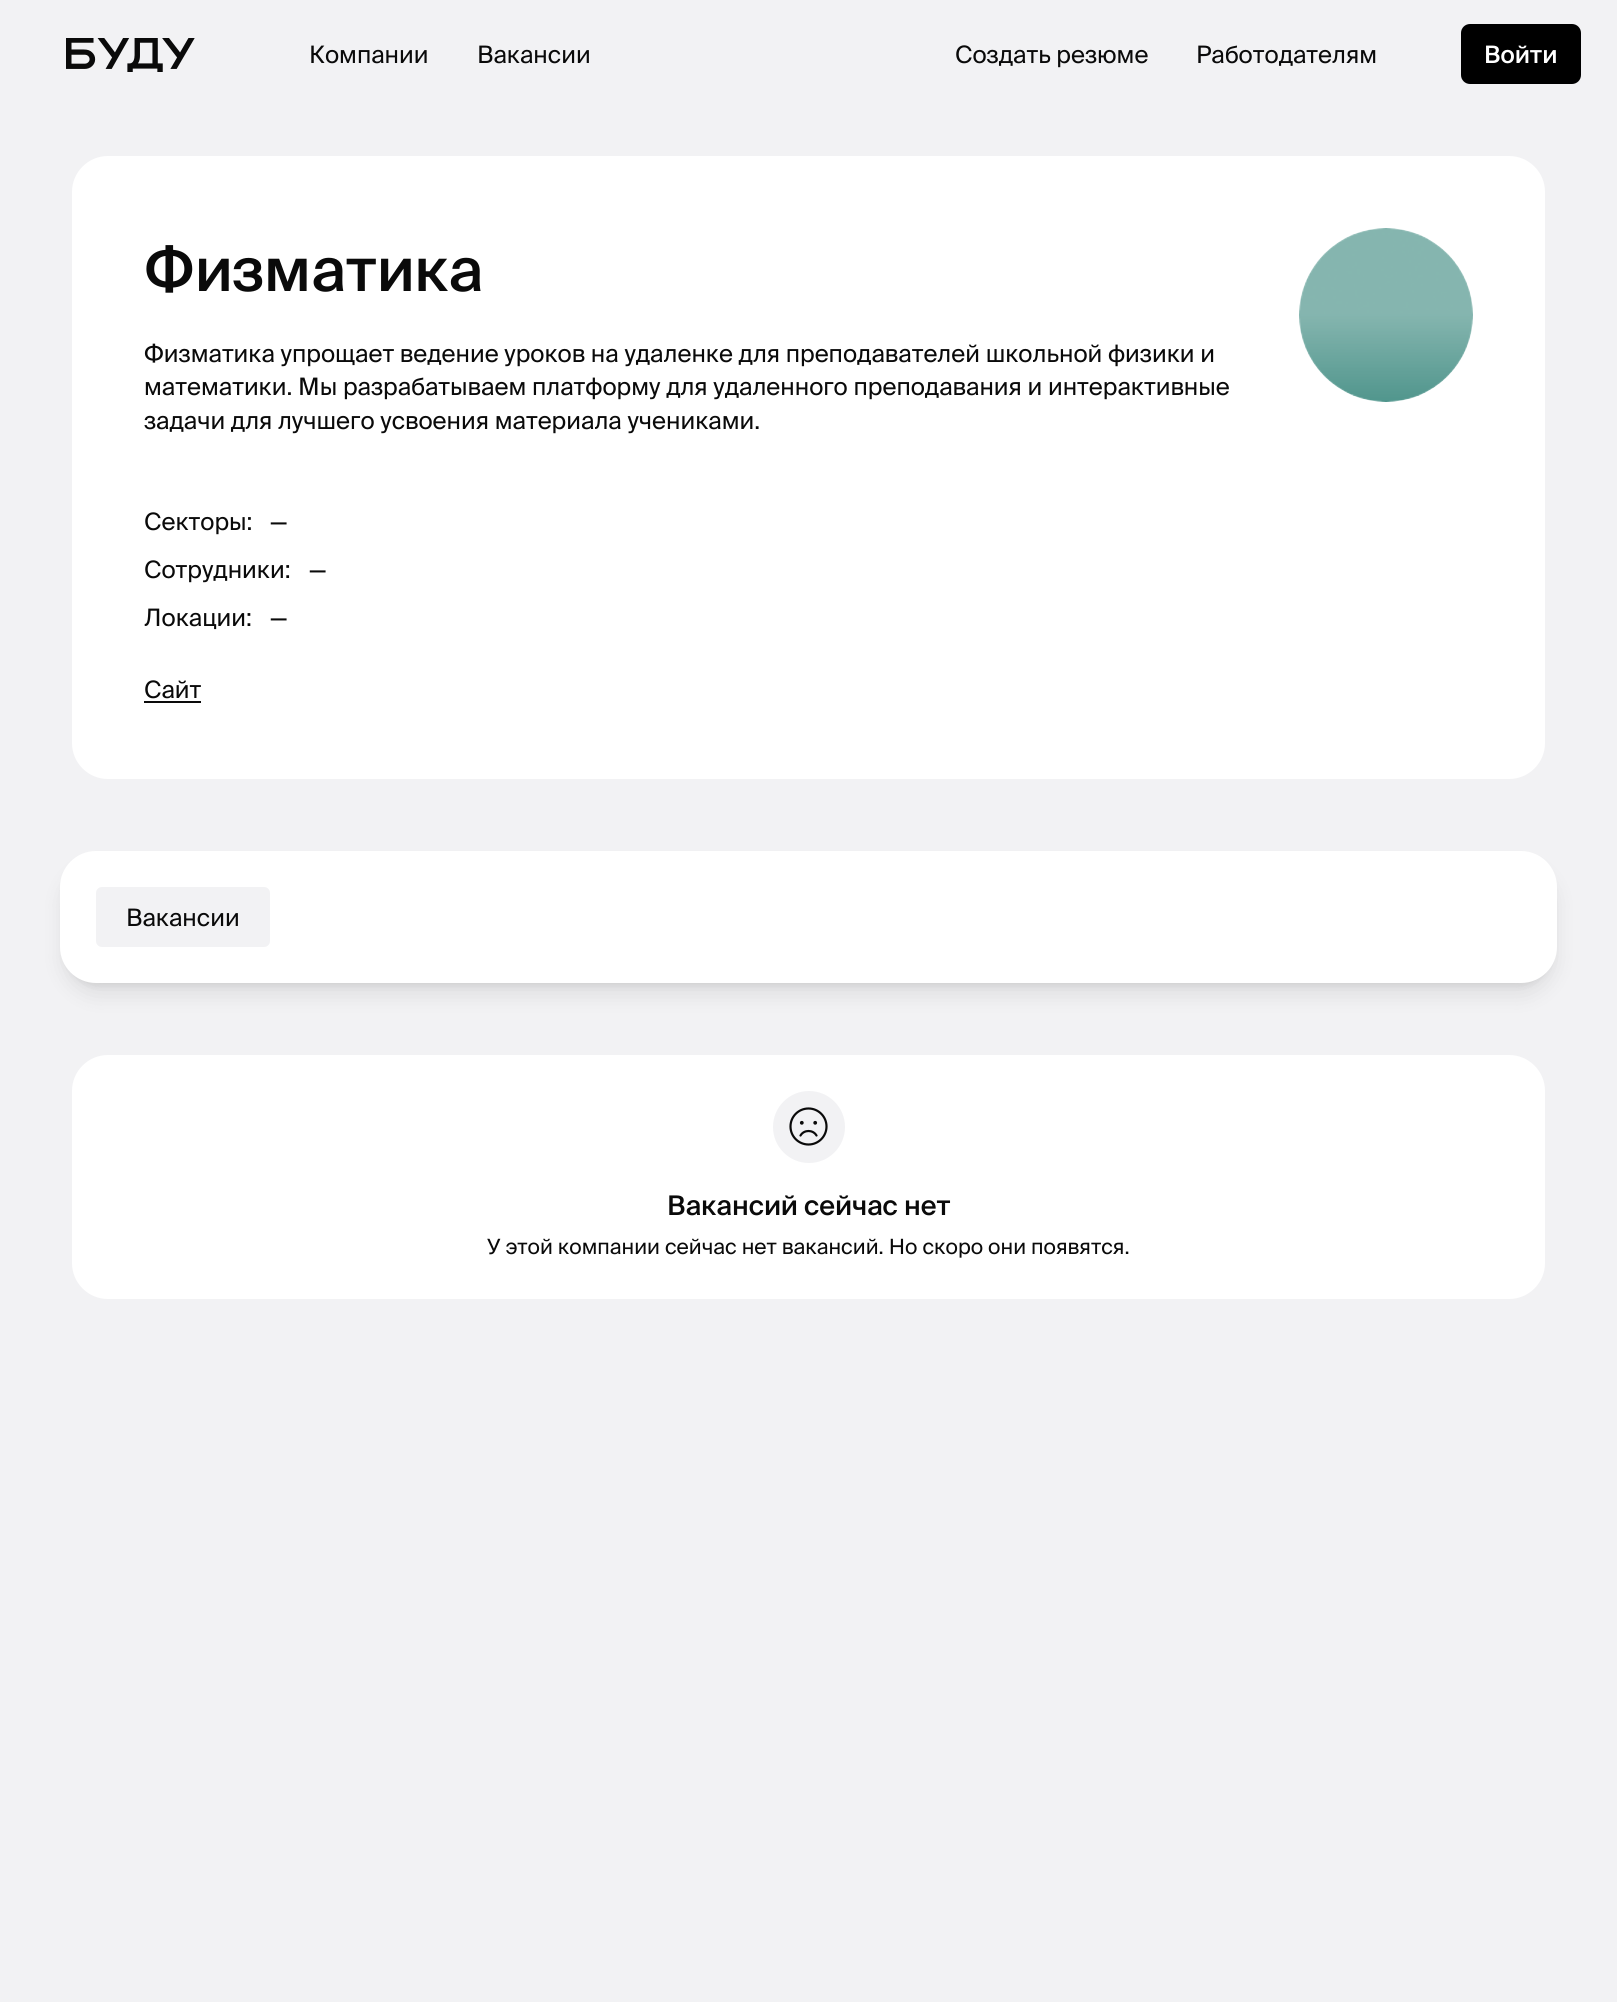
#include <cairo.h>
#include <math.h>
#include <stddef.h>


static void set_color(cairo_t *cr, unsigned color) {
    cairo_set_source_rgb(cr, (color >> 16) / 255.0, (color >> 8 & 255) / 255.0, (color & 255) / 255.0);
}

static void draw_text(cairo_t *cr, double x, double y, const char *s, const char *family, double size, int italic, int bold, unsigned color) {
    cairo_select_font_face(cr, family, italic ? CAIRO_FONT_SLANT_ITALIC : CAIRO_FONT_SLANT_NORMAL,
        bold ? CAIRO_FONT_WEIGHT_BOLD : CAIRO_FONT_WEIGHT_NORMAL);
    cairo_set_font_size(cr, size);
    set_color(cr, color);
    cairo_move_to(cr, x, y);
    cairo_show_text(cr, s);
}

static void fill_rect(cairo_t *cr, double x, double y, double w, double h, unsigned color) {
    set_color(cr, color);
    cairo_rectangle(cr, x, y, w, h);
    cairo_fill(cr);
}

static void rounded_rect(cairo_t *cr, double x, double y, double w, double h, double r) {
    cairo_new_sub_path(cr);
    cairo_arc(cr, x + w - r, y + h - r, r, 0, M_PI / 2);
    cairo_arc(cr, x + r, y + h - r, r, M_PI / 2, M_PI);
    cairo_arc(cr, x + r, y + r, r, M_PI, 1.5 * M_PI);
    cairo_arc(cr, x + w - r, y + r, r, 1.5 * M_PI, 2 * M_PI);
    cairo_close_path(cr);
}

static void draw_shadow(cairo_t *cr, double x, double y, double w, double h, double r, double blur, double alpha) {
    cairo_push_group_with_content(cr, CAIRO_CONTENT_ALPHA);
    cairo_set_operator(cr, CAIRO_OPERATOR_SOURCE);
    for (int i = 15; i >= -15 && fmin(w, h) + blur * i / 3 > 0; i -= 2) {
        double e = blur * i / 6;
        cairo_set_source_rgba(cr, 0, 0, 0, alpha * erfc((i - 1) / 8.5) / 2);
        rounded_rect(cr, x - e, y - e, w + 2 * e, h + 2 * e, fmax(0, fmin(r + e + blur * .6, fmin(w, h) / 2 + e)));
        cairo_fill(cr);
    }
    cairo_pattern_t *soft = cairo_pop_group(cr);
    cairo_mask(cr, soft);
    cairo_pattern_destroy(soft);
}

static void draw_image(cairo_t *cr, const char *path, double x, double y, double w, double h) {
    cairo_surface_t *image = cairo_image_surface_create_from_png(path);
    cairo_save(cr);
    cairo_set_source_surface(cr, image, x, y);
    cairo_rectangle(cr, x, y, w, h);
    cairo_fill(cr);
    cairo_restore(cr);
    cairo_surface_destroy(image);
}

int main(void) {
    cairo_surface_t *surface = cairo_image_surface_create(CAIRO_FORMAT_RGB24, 1617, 2002);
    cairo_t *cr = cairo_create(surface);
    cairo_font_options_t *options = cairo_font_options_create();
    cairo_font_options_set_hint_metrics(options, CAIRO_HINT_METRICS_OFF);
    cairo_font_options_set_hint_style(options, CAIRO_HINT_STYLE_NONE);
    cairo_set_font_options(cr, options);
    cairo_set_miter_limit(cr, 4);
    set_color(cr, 0xF2F2F4);
    cairo_paint(cr);
    draw_image(cr, "assets/img1.png", 66, 38, 129, 34);
    draw_text(cr, 309, 63, "Компании", "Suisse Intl", 24, 0, 0, 0x0A0A0A);
    draw_text(cr, 477, 63, "Вакансии", "Suisse Intl", 24, 0, 0, 0x0A0A0A);
    draw_text(cr, 955, 63, "Создать резюме", "Suisse Intl", 24, 0, 0, 0x0A0A0A);
    draw_text(cr, 1196, 63, "Работодателям", "Suisse Intl", 24, 0, 0, 0x0A0A0A);
    set_color(cr, 0x000000);
    rounded_rect(cr, 1461, 24, 120, 60, 9);
    cairo_fill(cr);
    draw_text(cr, 1484, 63, "Войти", "Suisse Intl Medium", 24, 0, 0, 0xFFFFFF);
    rounded_rect(cr, 72, 156, 1473, 623, 36);
    cairo_fill(cr);
    draw_text(cr, 144, 291, "Физматика", "Suisse Intl Medium", 60, 0, 0, 0x0A0A0A);
    draw_text(cr, 144, 362, "Физматика упрощает ведение уроков на удаленке для преподавателей школьной физики и", "Suisse Intl", 24, 0, 0, 0x0A0A0A);
    draw_text(cr, 144, 395, "математики. Мы разрабатываем платформу для удаленного преподавания и интерактивные", "Suisse Intl", 24, 0, 0, 0x0A0A0A);
    draw_text(cr, 144, 429, "задачи для лучшего усвоения материала учениками.", "Suisse Intl", 24, 0, 0, 0x0A0A0A);
    draw_image(cr, "assets/img2.png", 1299, 228, 174, 174);
    draw_text(cr, 144, 530, "Секторы:", "Suisse Intl", 24, 0, 0, 0x0A0A0A);
    draw_text(cr, 270, 530, "—", "Suisse Intl", 24, 0, 0, 0x0A0A0A);
    draw_text(cr, 144, 578, "Сотрудники:", "Suisse Intl", 24, 0, 0, 0x0A0A0A);
    draw_text(cr, 309, 578, "—", "Suisse Intl", 24, 0, 0, 0x0A0A0A);
    draw_text(cr, 144, 626, "Локации:", "Suisse Intl", 24, 0, 0, 0x0A0A0A);
    draw_text(cr, 270, 626, "—", "Suisse Intl", 24, 0, 0, 0x0A0A0A);
    draw_text(cr, 144, 698, "Сайт", "Suisse Intl", 24, 0, 0, 0x0A0A0A);
    fill_rect(cr, 144, 701, 57, 2, 0x0A0A0A);
    set_color(cr, 0x000000);
    draw_shadow(cr, 66, 863, 1485, 120, 30, 4.5, 0.1);
    draw_shadow(cr, 65, 870, 1488, 123, 32, 11, 0.1);
    set_color(cr, 0xFFFFFF);
    rounded_rect(cr, 60, 851, 1497, 132, 36);
    cairo_fill(cr);
    set_color(cr, 0xF2F2F4);
    rounded_rect(cr, 96, 887, 174, 60, 6);
    cairo_fill(cr);
    draw_text(cr, 126, 926, "Вакансии", "Suisse Intl", 24, 0, 0, 0x0A0A0A);
    set_color(cr, 0xFFFFFF);
    rounded_rect(cr, 72, 1055, 1473, 244, 36);
    cairo_fill(cr);
    set_color(cr, 0xF2F2F4);
    cairo_arc(cr, 809, 1127, 36, 0, 2 * M_PI);
    cairo_fill(cr);
    cairo_arc(cr, 808.5, 1126.5, 18, 0, 2 * M_PI);
    set_color(cr, 0x0A0A0A);
    cairo_set_line_width(cr, 2.2);
    cairo_stroke(cr);
    cairo_new_path(cr);
    cairo_move_to(cr, 816.5, 1135.5);
    cairo_curve_to(cr, 813, 1129.5, 804, 1129.5, 800.5, 1135.5);
    cairo_set_line_cap(cr, CAIRO_LINE_CAP_ROUND);
    cairo_set_line_join(cr, CAIRO_LINE_JOIN_ROUND);
    cairo_stroke(cr);
    cairo_arc(cr, 801.8, 1122.8, 1.9, 0, 2 * M_PI);
    cairo_fill(cr);
    cairo_arc(cr, 815.2, 1122.8, 1.9, 0, 2 * M_PI);
    cairo_fill(cr);
    draw_text(cr, 667, 1215, "Вакансий сейчас нет", "Suisse Intl Medium", 27, 0, 0, 0x0A0A0A);
    draw_text(cr, 487, 1254, "У этой компании сейчас нет вакансий. Но скоро они появятся.", "Suisse Intl", 21, 0, 0, 0x0A0A0A);
    cairo_surface_write_to_png(surface, "output.png");
    cairo_font_options_destroy(options);
    cairo_destroy(cr);
    cairo_surface_destroy(surface);
    return 0;
}
